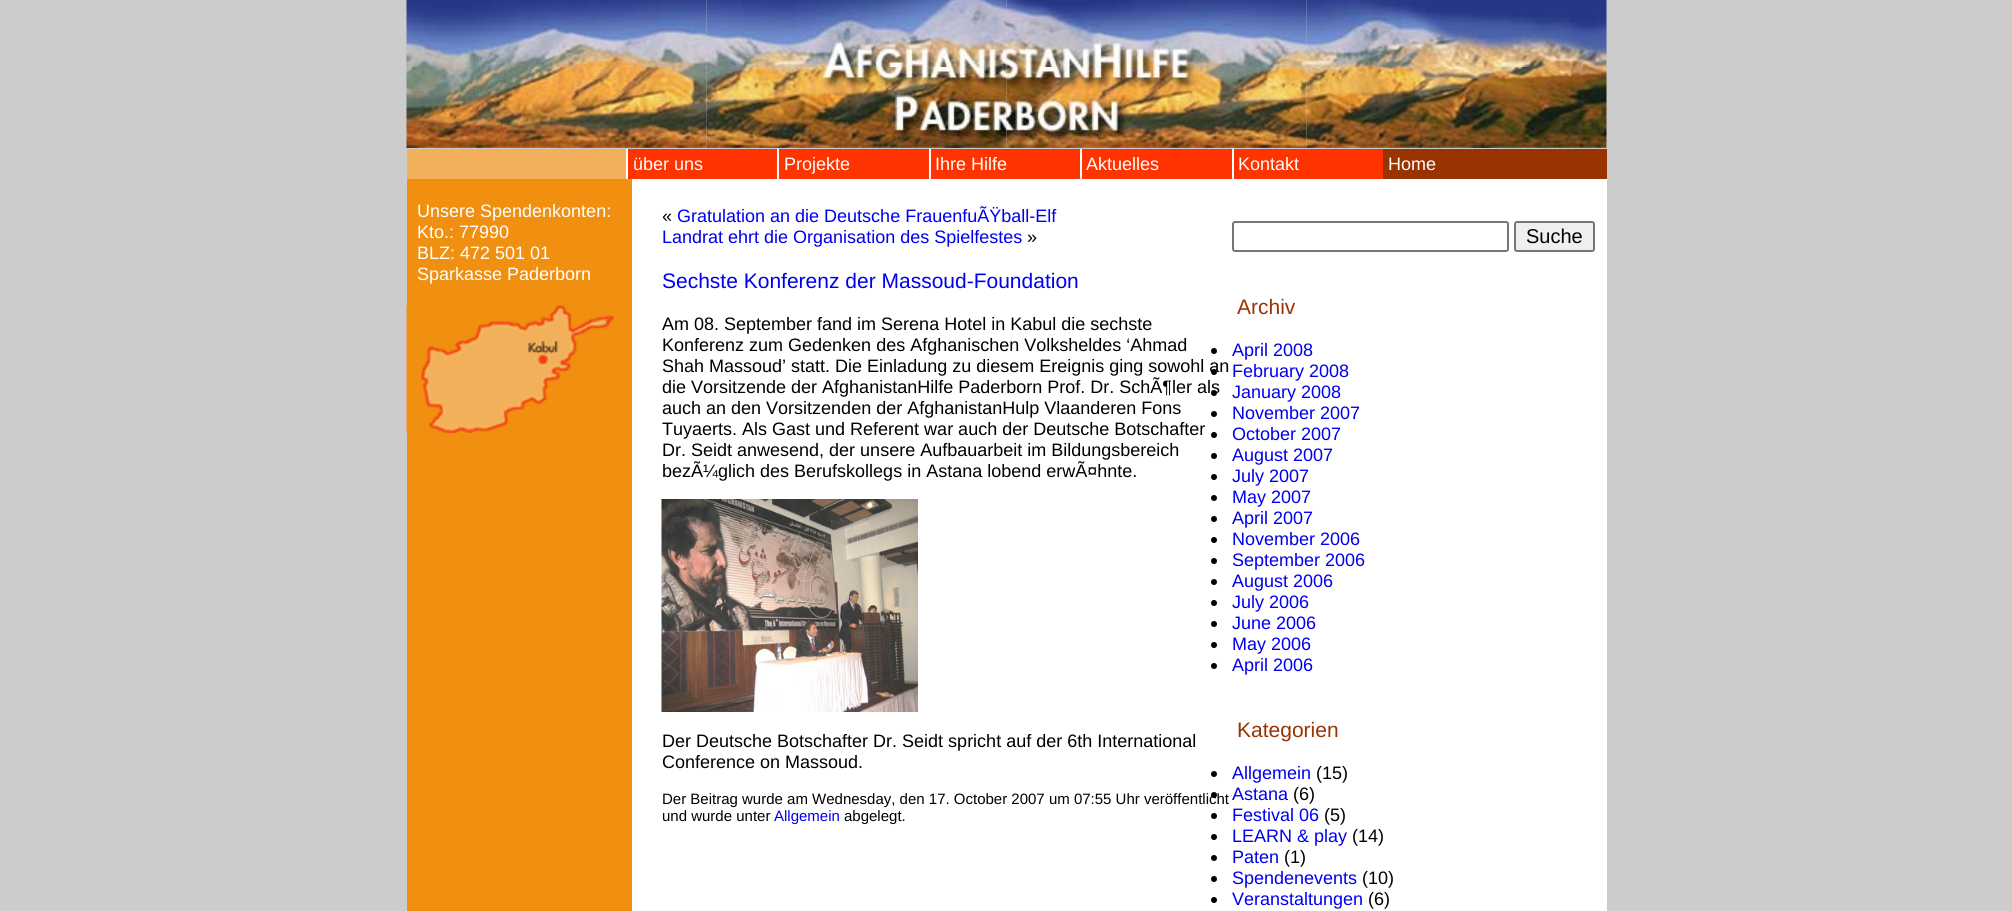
#include <cairo.h>
#include <math.h>
#include <stddef.h>


static void set_color(cairo_t *cr, unsigned color) {
    cairo_set_source_rgb(cr, (color >> 16) / 255.0, (color >> 8 & 255) / 255.0, (color & 255) / 255.0);
}

static void draw_text(cairo_t *cr, double x, double y, const char *s, const char *family, double size, int italic, int bold, unsigned color) {
    cairo_select_font_face(cr, family, italic ? CAIRO_FONT_SLANT_ITALIC : CAIRO_FONT_SLANT_NORMAL,
        bold ? CAIRO_FONT_WEIGHT_BOLD : CAIRO_FONT_WEIGHT_NORMAL);
    cairo_set_font_size(cr, size);
    set_color(cr, color);
    cairo_move_to(cr, x, y);
    cairo_show_text(cr, s);
}

static void fill_rect(cairo_t *cr, double x, double y, double w, double h, unsigned color) {
    set_color(cr, color);
    cairo_rectangle(cr, x, y, w, h);
    cairo_fill(cr);
}

static void rounded_rect(cairo_t *cr, double x, double y, double w, double h, double r) {
    cairo_new_sub_path(cr);
    cairo_arc(cr, x + w - r, y + h - r, r, 0, M_PI / 2);
    cairo_arc(cr, x + r, y + h - r, r, M_PI / 2, M_PI);
    cairo_arc(cr, x + r, y + r, r, M_PI, 1.5 * M_PI);
    cairo_arc(cr, x + w - r, y + r, r, 1.5 * M_PI, 2 * M_PI);
    cairo_close_path(cr);
}

static void draw_image(cairo_t *cr, const char *path, double x, double y, double w, double h) {
    cairo_surface_t *image = cairo_image_surface_create_from_png(path);
    cairo_save(cr);
    cairo_set_source_surface(cr, image, x, y);
    cairo_rectangle(cr, x, y, w, h);
    cairo_fill(cr);
    cairo_restore(cr);
    cairo_surface_destroy(image);
}

int main(void) {
    cairo_surface_t *surface = cairo_image_surface_create(CAIRO_FORMAT_RGB24, 2012, 911);
    cairo_t *cr = cairo_create(surface);
    cairo_font_options_t *options = cairo_font_options_create();
    cairo_font_options_set_hint_metrics(options, CAIRO_HINT_METRICS_OFF);
    cairo_font_options_set_hint_style(options, CAIRO_HINT_STYLE_NONE);
    cairo_set_font_options(cr, options);
    cairo_set_miter_limit(cr, 4);
    set_color(cr, 0xCCCCCC);
    cairo_paint(cr);
    draw_image(cr, "assets/img1.png", 406, 0, 301, 67);
    draw_image(cr, "assets/img2.png", 706, 0, 301, 67);
    draw_image(cr, "assets/img3.png", 1006, 0, 301, 67);
    draw_image(cr, "assets/img4.png", 1306, 0, 301, 67);
    draw_image(cr, "assets/img5.png", 406, 67, 301, 81);
    draw_image(cr, "assets/img6.png", 706, 67, 301, 81);
    draw_image(cr, "assets/img7.png", 1006, 67, 301, 81);
    draw_image(cr, "assets/img8.png", 1306, 67, 301, 81);
    fill_rect(cr, 407, 149, 219, 30, 0xF3B05A);
    fill_rect(cr, 628, 149, 149, 30, 0xFF3300);
    fill_rect(cr, 626, 149, 2, 30, 0xFFFFFF);
    draw_text(cr, 633, 170, "über uns", "Liberation Sans", 18, 0, 0, 0xFFFFFF);
    fill_rect(cr, 779, 149, 150, 30, 0xFF3300);
    fill_rect(cr, 777, 149, 2, 30, 0xFFFFFF);
    draw_text(cr, 784, 170, "Projekte", "Liberation Sans", 18, 0, 0, 0xFFFFFF);
    fill_rect(cr, 931, 149, 149, 30, 0xFF3300);
    fill_rect(cr, 929, 149, 2, 30, 0xFFFFFF);
    draw_text(cr, 935, 170, "Ihre Hilfe", "Liberation Sans", 18, 0, 0, 0xFFFFFF);
    fill_rect(cr, 1082, 149, 150, 30, 0xFF3300);
    fill_rect(cr, 1080, 149, 2, 30, 0xFFFFFF);
    draw_text(cr, 1086, 170, "Aktuelles", "Liberation Sans", 18, 0, 0, 0xFFFFFF);
    fill_rect(cr, 1234, 149, 149, 30, 0xFF3300);
    fill_rect(cr, 1232, 149, 2, 30, 0xFFFFFF);
    draw_text(cr, 1238, 170, "Kontakt", "Liberation Sans", 18, 0, 0, 0xFFFFFF);
    fill_rect(cr, 1383, 149, 224, 30, 0x993300);
    draw_text(cr, 1388, 170, "Home", "Liberation Sans", 18, 0, 0, 0xFFFFFF);
    fill_rect(cr, 407, 179, 225, 732, 0xF18F11);
    draw_text(cr, 417, 217, "Unsere Spendenkonten:", "Liberation Sans", 18, 0, 0, 0xFFFFFF);
    draw_text(cr, 417, 238, "Kto.: 77990", "Liberation Sans", 18, 0, 0, 0xFFFFFF);
    draw_text(cr, 417, 259, "BLZ: 472 501 01", "Liberation Sans", 18, 0, 0, 0xFFFFFF);
    draw_text(cr, 417, 280, "Sparkasse Paderborn", "Liberation Sans", 18, 0, 0, 0xFFFFFF);
    draw_image(cr, "assets/img9.png", 406, 305, 208, 128);
    fill_rect(cr, 632, 179, 975, 732, 0xFFFFFF);
    draw_text(cr, 662, 222, "«", "Liberation Sans", 18, 0, 0, 0x000000);
    draw_text(cr, 677, 222, "Gratulation an die Deutsche FrauenfuÃŸball-Elf", "Liberation Sans", 18, 0, 0, 0x0000EE);
    draw_text(cr, 662, 243, "Landrat ehrt die Organisation des Spielfestes", "Liberation Sans", 18, 0, 0, 0x0000EE);
    draw_text(cr, 1027, 243, "»", "Liberation Sans", 18, 0, 0, 0x000000);
    draw_text(cr, 662, 288, "Sechste Konferenz der Massoud-Foundation", "Liberation Sans", 21, 0, 0, 0x0000EE);
    draw_text(cr, 662, 330, "Am 08. September fand im Serena Hotel in Kabul die sechste", "Liberation Sans", 18, 0, 0, 0x000000);
    draw_text(cr, 662, 351, "Konferenz zum Gedenken des Afghanischen Volksheldes ‘Ahmad", "Liberation Sans", 18, 0, 0, 0x000000);
    draw_text(cr, 662, 372, "Shah Massoud’ statt. Die Einladung zu diesem Ereignis ging sowohl an", "Liberation Sans", 18, 0, 0, 0x000000);
    draw_text(cr, 662, 393, "die Vorsitzende der AfghanistanHilfe Paderborn Prof. Dr. SchÃ¶ler als", "Liberation Sans", 18, 0, 0, 0x000000);
    draw_text(cr, 662, 414, "auch an den Vorsitzenden der AfghanistanHulp Vlaanderen Fons", "Liberation Sans", 18, 0, 0, 0x000000);
    draw_text(cr, 662, 435, "Tuyaerts. Als Gast und Referent war auch der Deutsche Botschafter", "Liberation Sans", 18, 0, 0, 0x000000);
    draw_text(cr, 662, 456, "Dr. Seidt anwesend, der unsere Aufbauarbeit im Bildungsbereich", "Liberation Sans", 18, 0, 0, 0x000000);
    draw_text(cr, 662, 477, "bezÃ¼glich des Berufskollegs in Astana lobend erwÃ¤hnte.", "Liberation Sans", 18, 0, 0, 0x000000);
    draw_image(cr, "assets/img10.png", 661, 499, 257, 213);
    draw_text(cr, 662, 747, "Der Deutsche Botschafter Dr. Seidt spricht auf der 6th International", "Liberation Sans", 18, 0, 0, 0x000000);
    draw_text(cr, 662, 768, "Conference on Massoud.", "Liberation Sans", 18, 0, 0, 0x000000);
    draw_text(cr, 662, 804, "Der Beitrag wurde am Wednesday, den 17. October 2007 um 07:55 Uhr veröffentlicht", "Liberation Sans", 15, 0, 0, 0x000000);
    draw_text(cr, 662, 821, "und wurde unter", "Liberation Sans", 15, 0, 0, 0x000000);
    draw_text(cr, 774, 821, "Allgemein", "Liberation Sans", 15, 0, 0, 0x0000EE);
    draw_text(cr, 844, 821, "abgelegt.", "Liberation Sans", 15, 0, 0, 0x000000);
    rounded_rect(cr, 1233, 222, 275, 29, 2);
    set_color(cr, 0x767676);
    cairo_stroke(cr);
    set_color(cr, 0xEFEFEF);
    rounded_rect(cr, 1515, 222, 79, 29, 2);
    cairo_fill_preserve(cr);
    set_color(cr, 0x767676);
    cairo_stroke(cr);
    draw_text(cr, 1526, 243, "Suche", "Liberation Sans", 20, 0, 0, 0x000000);
    draw_text(cr, 1237, 314, "Archiv", "Liberation Sans", 21, 0, 0, 0x993300);
    set_color(cr, 0x000000);
    cairo_new_path(cr);
    cairo_arc(cr, 1214, 351, 3, 0, 2 * M_PI);
    cairo_fill(cr);
    draw_text(cr, 1232, 356, "April 2008", "Liberation Sans", 18, 0, 0, 0x0000EE);
    set_color(cr, 0x000000);
    cairo_new_path(cr);
    cairo_arc(cr, 1214, 372, 3, 0, 2 * M_PI);
    cairo_fill(cr);
    draw_text(cr, 1232, 377, "February 2008", "Liberation Sans", 18, 0, 0, 0x0000EE);
    set_color(cr, 0x000000);
    cairo_new_path(cr);
    cairo_arc(cr, 1214, 393, 3, 0, 2 * M_PI);
    cairo_fill(cr);
    draw_text(cr, 1232, 398, "January 2008", "Liberation Sans", 18, 0, 0, 0x0000EE);
    set_color(cr, 0x000000);
    cairo_new_path(cr);
    cairo_arc(cr, 1214, 414, 3, 0, 2 * M_PI);
    cairo_fill(cr);
    draw_text(cr, 1232, 419, "November 2007", "Liberation Sans", 18, 0, 0, 0x0000EE);
    set_color(cr, 0x000000);
    cairo_new_path(cr);
    cairo_arc(cr, 1214, 435, 3, 0, 2 * M_PI);
    cairo_fill(cr);
    draw_text(cr, 1232, 440, "October 2007", "Liberation Sans", 18, 0, 0, 0x0000EE);
    set_color(cr, 0x000000);
    cairo_new_path(cr);
    cairo_arc(cr, 1214, 456, 3, 0, 2 * M_PI);
    cairo_fill(cr);
    draw_text(cr, 1232, 461, "August 2007", "Liberation Sans", 18, 0, 0, 0x0000EE);
    set_color(cr, 0x000000);
    cairo_new_path(cr);
    cairo_arc(cr, 1214, 477, 3, 0, 2 * M_PI);
    cairo_fill(cr);
    draw_text(cr, 1232, 482, "July 2007", "Liberation Sans", 18, 0, 0, 0x0000EE);
    set_color(cr, 0x000000);
    cairo_new_path(cr);
    cairo_arc(cr, 1214, 498, 3, 0, 2 * M_PI);
    cairo_fill(cr);
    draw_text(cr, 1232, 503, "May 2007", "Liberation Sans", 18, 0, 0, 0x0000EE);
    set_color(cr, 0x000000);
    cairo_new_path(cr);
    cairo_arc(cr, 1214, 519, 3, 0, 2 * M_PI);
    cairo_fill(cr);
    draw_text(cr, 1232, 524, "April 2007", "Liberation Sans", 18, 0, 0, 0x0000EE);
    set_color(cr, 0x000000);
    cairo_new_path(cr);
    cairo_arc(cr, 1214, 540, 3, 0, 2 * M_PI);
    cairo_fill(cr);
    draw_text(cr, 1232, 545, "November 2006", "Liberation Sans", 18, 0, 0, 0x0000EE);
    set_color(cr, 0x000000);
    cairo_new_path(cr);
    cairo_arc(cr, 1214, 561, 3, 0, 2 * M_PI);
    cairo_fill(cr);
    draw_text(cr, 1232, 566, "September 2006", "Liberation Sans", 18, 0, 0, 0x0000EE);
    set_color(cr, 0x000000);
    cairo_new_path(cr);
    cairo_arc(cr, 1214, 582, 3, 0, 2 * M_PI);
    cairo_fill(cr);
    draw_text(cr, 1232, 587, "August 2006", "Liberation Sans", 18, 0, 0, 0x0000EE);
    set_color(cr, 0x000000);
    cairo_new_path(cr);
    cairo_arc(cr, 1214, 603, 3, 0, 2 * M_PI);
    cairo_fill(cr);
    draw_text(cr, 1232, 608, "July 2006", "Liberation Sans", 18, 0, 0, 0x0000EE);
    set_color(cr, 0x000000);
    cairo_new_path(cr);
    cairo_arc(cr, 1214, 624, 3, 0, 2 * M_PI);
    cairo_fill(cr);
    draw_text(cr, 1232, 629, "June 2006", "Liberation Sans", 18, 0, 0, 0x0000EE);
    set_color(cr, 0x000000);
    cairo_new_path(cr);
    cairo_arc(cr, 1214, 645, 3, 0, 2 * M_PI);
    cairo_fill(cr);
    draw_text(cr, 1232, 650, "May 2006", "Liberation Sans", 18, 0, 0, 0x0000EE);
    set_color(cr, 0x000000);
    cairo_new_path(cr);
    cairo_arc(cr, 1214, 666, 3, 0, 2 * M_PI);
    cairo_fill(cr);
    draw_text(cr, 1232, 671, "April 2006", "Liberation Sans", 18, 0, 0, 0x0000EE);
    draw_text(cr, 1237, 737, "Kategorien", "Liberation Sans", 21, 0, 0, 0x993300);
    set_color(cr, 0x000000);
    cairo_new_path(cr);
    cairo_arc(cr, 1214, 774, 3, 0, 2 * M_PI);
    cairo_fill(cr);
    draw_text(cr, 1232, 779, "Allgemein", "Liberation Sans", 18, 0, 0, 0x0000EE);
    draw_text(cr, 1316, 779, "(15)", "Liberation Sans", 18, 0, 0, 0x000000);
    cairo_new_path(cr);
    cairo_arc(cr, 1214, 795, 3, 0, 2 * M_PI);
    cairo_fill(cr);
    draw_text(cr, 1232, 800, "Astana", "Liberation Sans", 18, 0, 0, 0x0000EE);
    draw_text(cr, 1293, 800, "(6)", "Liberation Sans", 18, 0, 0, 0x000000);
    cairo_new_path(cr);
    cairo_arc(cr, 1214, 816, 3, 0, 2 * M_PI);
    cairo_fill(cr);
    draw_text(cr, 1232, 821, "Festival 06", "Liberation Sans", 18, 0, 0, 0x0000EE);
    draw_text(cr, 1324, 821, "(5)", "Liberation Sans", 18, 0, 0, 0x000000);
    cairo_new_path(cr);
    cairo_arc(cr, 1214, 837, 3, 0, 2 * M_PI);
    cairo_fill(cr);
    draw_text(cr, 1232, 842, "LEARN & play", "Liberation Sans", 18, 0, 0, 0x0000EE);
    draw_text(cr, 1352, 842, "(14)", "Liberation Sans", 18, 0, 0, 0x000000);
    cairo_new_path(cr);
    cairo_arc(cr, 1214, 858, 3, 0, 2 * M_PI);
    cairo_fill(cr);
    draw_text(cr, 1232, 863, "Paten", "Liberation Sans", 18, 0, 0, 0x0000EE);
    draw_text(cr, 1284, 863, "(1)", "Liberation Sans", 18, 0, 0, 0x000000);
    cairo_new_path(cr);
    cairo_arc(cr, 1214, 879, 3, 0, 2 * M_PI);
    cairo_fill(cr);
    draw_text(cr, 1232, 884, "Spendenevents", "Liberation Sans", 18, 0, 0, 0x0000EE);
    draw_text(cr, 1362, 884, "(10)", "Liberation Sans", 18, 0, 0, 0x000000);
    cairo_new_path(cr);
    cairo_arc(cr, 1214, 900, 3, 0, 2 * M_PI);
    cairo_fill(cr);
    draw_text(cr, 1232, 905, "Veranstaltungen", "Liberation Sans", 18, 0, 0, 0x0000EE);
    draw_text(cr, 1368, 905, "(6)", "Liberation Sans", 18, 0, 0, 0x000000);
    cairo_surface_write_to_png(surface, "output.png");
    cairo_font_options_destroy(options);
    cairo_destroy(cr);
    cairo_surface_destroy(surface);
    return 0;
}
